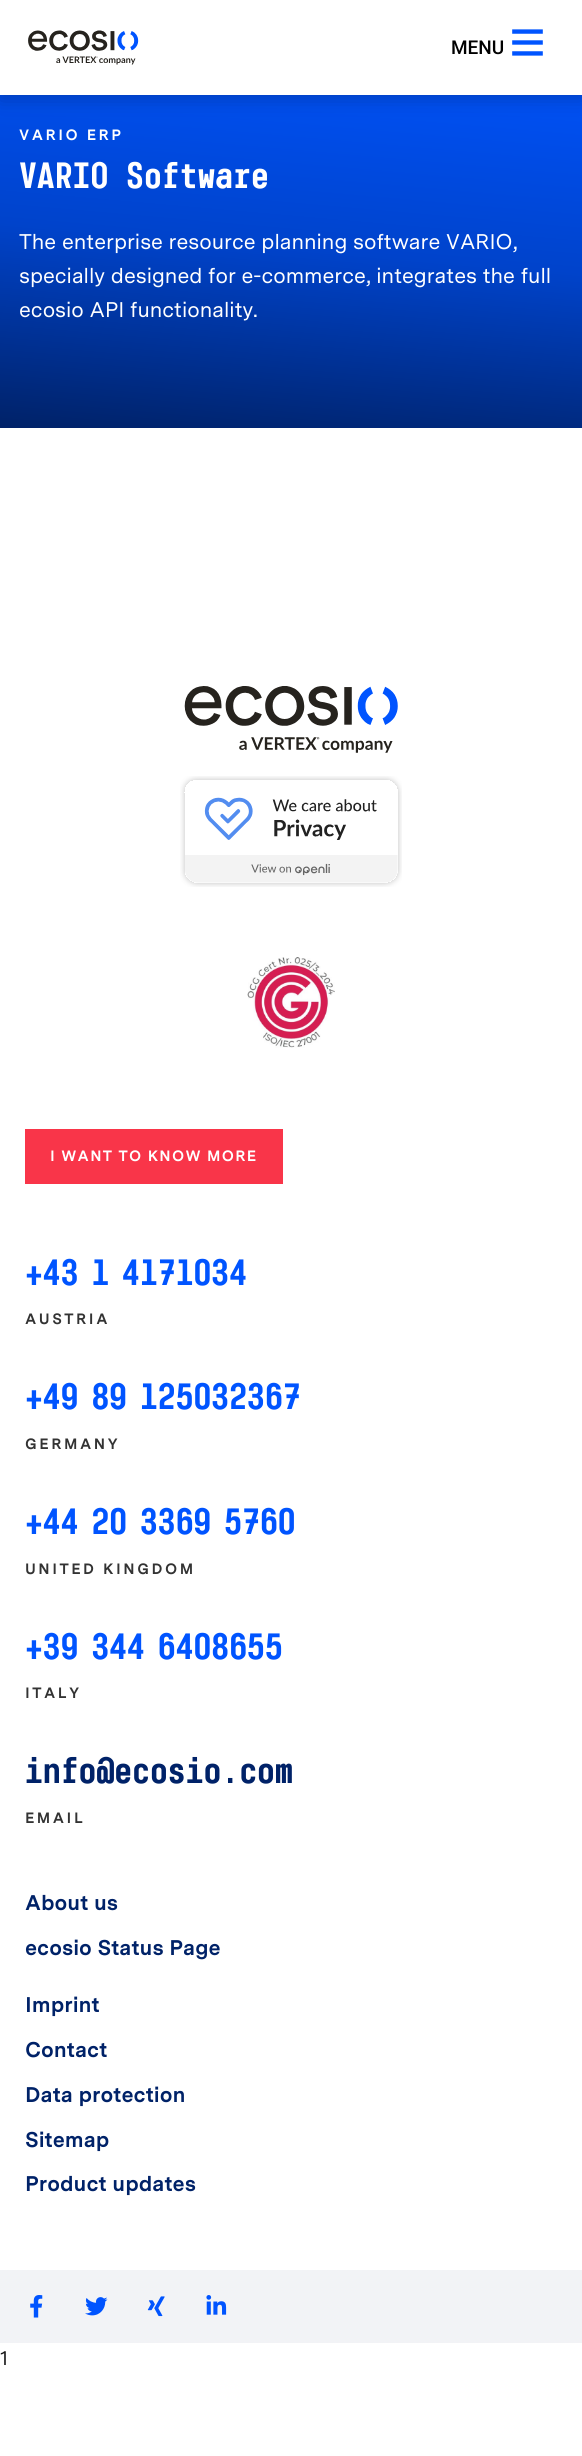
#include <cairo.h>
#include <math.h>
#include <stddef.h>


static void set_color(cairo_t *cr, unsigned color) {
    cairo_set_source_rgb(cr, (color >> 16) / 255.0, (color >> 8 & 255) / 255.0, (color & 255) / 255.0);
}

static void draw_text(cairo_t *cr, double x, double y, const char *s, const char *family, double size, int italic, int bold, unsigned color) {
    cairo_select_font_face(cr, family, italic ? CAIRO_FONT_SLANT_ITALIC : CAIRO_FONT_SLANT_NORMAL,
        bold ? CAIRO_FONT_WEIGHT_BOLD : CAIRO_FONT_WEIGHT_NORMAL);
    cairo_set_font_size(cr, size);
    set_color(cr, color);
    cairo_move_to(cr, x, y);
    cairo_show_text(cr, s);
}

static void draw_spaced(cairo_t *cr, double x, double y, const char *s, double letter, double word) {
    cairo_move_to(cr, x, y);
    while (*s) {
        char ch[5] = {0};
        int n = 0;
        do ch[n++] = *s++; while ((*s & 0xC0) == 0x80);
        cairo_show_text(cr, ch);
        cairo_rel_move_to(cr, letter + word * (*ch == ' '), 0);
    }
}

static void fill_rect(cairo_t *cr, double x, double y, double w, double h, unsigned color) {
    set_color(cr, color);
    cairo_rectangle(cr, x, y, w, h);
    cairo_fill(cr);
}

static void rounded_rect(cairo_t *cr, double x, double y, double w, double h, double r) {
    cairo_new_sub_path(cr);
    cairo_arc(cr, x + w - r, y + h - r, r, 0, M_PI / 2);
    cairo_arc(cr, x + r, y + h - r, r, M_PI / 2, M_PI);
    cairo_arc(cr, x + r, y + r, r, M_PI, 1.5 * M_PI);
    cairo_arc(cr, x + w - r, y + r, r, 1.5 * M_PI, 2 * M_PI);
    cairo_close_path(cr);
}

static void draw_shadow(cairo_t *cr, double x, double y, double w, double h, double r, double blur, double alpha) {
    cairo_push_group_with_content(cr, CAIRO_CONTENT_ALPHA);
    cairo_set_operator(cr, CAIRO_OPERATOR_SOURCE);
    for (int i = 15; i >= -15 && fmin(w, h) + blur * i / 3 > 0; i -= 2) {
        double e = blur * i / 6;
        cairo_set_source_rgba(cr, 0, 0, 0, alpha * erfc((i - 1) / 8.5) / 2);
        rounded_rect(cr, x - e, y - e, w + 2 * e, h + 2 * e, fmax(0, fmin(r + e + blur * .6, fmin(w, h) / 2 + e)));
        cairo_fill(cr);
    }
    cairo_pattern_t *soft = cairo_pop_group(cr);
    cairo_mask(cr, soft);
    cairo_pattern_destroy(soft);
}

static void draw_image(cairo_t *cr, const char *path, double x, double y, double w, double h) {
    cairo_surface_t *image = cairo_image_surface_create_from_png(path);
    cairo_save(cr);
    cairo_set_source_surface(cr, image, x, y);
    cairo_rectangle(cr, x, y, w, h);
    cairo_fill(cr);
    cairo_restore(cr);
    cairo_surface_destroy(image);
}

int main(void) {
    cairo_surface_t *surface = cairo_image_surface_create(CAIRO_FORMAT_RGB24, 582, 2456);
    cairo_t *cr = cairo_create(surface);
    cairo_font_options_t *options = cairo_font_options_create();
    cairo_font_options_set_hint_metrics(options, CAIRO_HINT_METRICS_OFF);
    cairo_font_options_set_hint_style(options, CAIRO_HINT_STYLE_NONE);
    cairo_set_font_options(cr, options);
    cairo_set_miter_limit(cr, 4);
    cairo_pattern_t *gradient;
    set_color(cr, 0xFFFFFF);
    cairo_paint(cr);
    gradient = cairo_pattern_create_linear(273, 451, 310, 27);
    cairo_pattern_add_color_stop_rgba(gradient, 0, 0, 0.133, 0.408, 1);
    cairo_pattern_add_color_stop_rgba(gradient, 0.48, 0, 0.263, 0.796, 1);
    cairo_pattern_add_color_stop_rgba(gradient, 1, 0, 0.329, 1, 1);
    cairo_set_source(cr, gradient);
    cairo_pattern_destroy(gradient);
    cairo_rectangle(cr, 0, 95, 582, 333);
    cairo_fill(cr);
    set_color(cr, 0x000000);
    draw_shadow(cr, 0, 3, 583, 95, 0, 10, 0.24);
    fill_rect(cr, 0, 0, 582, 95, 0xFFFFFF);
    draw_image(cr, "assets/img1.png", 28, 30, 111, 35);
    draw_text(cr, 451, 54, "MENU", "Roboto Medium", 19, 0, 0, 0x000000);
    draw_image(cr, "assets/img2.png", 512, 29, 31, 27);
    cairo_select_font_face(cr, "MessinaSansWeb", CAIRO_FONT_SLANT_NORMAL, CAIRO_FONT_WEIGHT_BOLD);
    cairo_set_font_size(cr, 15);
    set_color(cr, 0xFFFFFF);
    draw_spaced(cr, 19, 140, "VARIO ERP", 2.5, 0);
    draw_text(cr, 19, 188, "VARIO Software", "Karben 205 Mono", 37.5, 0, 0, 0xFFFFFF);
    draw_text(cr, 19, 249, "The enterprise resource planning software VARIO,", "MessinaSansWeb", 21.25, 0, 0, 0xFFFFFF);
    draw_text(cr, 19, 283, "specially designed for e-commerce, integrates the full", "MessinaSansWeb", 21.25, 0, 0, 0xFFFFFF);
    draw_text(cr, 19, 317, "ecosio API functionality.", "MessinaSansWeb", 21.25, 0, 0, 0xFFFFFF);
    draw_image(cr, "assets/img3.png", 184, 686, 214, 67);
    draw_image(cr, "assets/img4.png", 180, 776, 222, 111);
    draw_image(cr, "assets/img5.png", 247, 957, 88, 91);
    fill_rect(cr, 25, 1129, 258, 55, 0xF93549);
    cairo_select_font_face(cr, "MessinaSansWeb", CAIRO_FONT_SLANT_NORMAL, CAIRO_FONT_WEIGHT_BOLD);
    cairo_set_font_size(cr, 15);
    set_color(cr, 0xFFFFFF);
    draw_spaced(cr, 50, 1161, "I WANT TO KNOW MORE", 1.25, 0);
    cairo_select_font_face(cr, "Karben 205 Mono", CAIRO_FONT_SLANT_NORMAL, CAIRO_FONT_WEIGHT_NORMAL);
    cairo_set_font_size(cr, 37.5);
    set_color(cr, 0x0054FF);
    draw_spaced(cr, 25, 1285, "+43 1 4171034", 0, -5);
    cairo_select_font_face(cr, "MessinaSansWeb", CAIRO_FONT_SLANT_NORMAL, CAIRO_FONT_WEIGHT_BOLD);
    cairo_set_font_size(cr, 15);
    set_color(cr, 0x333333);
    draw_spaced(cr, 25, 1324, "AUSTRIA", 2.5, 0);
    cairo_select_font_face(cr, "Karben 205 Mono", CAIRO_FONT_SLANT_NORMAL, CAIRO_FONT_WEIGHT_NORMAL);
    cairo_set_font_size(cr, 37.5);
    set_color(cr, 0x0054FF);
    draw_spaced(cr, 25, 1409, "+49 89 125032367", 0, -5);
    cairo_select_font_face(cr, "MessinaSansWeb", CAIRO_FONT_SLANT_NORMAL, CAIRO_FONT_WEIGHT_BOLD);
    cairo_set_font_size(cr, 15);
    set_color(cr, 0x333333);
    draw_spaced(cr, 25, 1449, "GERMANY", 2.5, 0);
    cairo_select_font_face(cr, "Karben 205 Mono", CAIRO_FONT_SLANT_NORMAL, CAIRO_FONT_WEIGHT_NORMAL);
    cairo_set_font_size(cr, 37.5);
    set_color(cr, 0x0054FF);
    draw_spaced(cr, 25, 1534, "+44 20 3369 5760", 0, -5);
    cairo_select_font_face(cr, "MessinaSansWeb", CAIRO_FONT_SLANT_NORMAL, CAIRO_FONT_WEIGHT_BOLD);
    cairo_set_font_size(cr, 15);
    set_color(cr, 0x333333);
    draw_spaced(cr, 25, 1574, "UNITED KINGDOM", 2.5, 0);
    cairo_select_font_face(cr, "Karben 205 Mono", CAIRO_FONT_SLANT_NORMAL, CAIRO_FONT_WEIGHT_NORMAL);
    cairo_set_font_size(cr, 37.5);
    set_color(cr, 0x0054FF);
    draw_spaced(cr, 25, 1659, "+39 344 6408655", 0, -5);
    cairo_select_font_face(cr, "MessinaSansWeb", CAIRO_FONT_SLANT_NORMAL, CAIRO_FONT_WEIGHT_BOLD);
    cairo_set_font_size(cr, 15);
    set_color(cr, 0x333333);
    draw_spaced(cr, 25, 1698, "ITALY", 2.5, 0);
    draw_text(cr, 25, 1783, "info@ecosio.com", "Karben 205 Mono", 37.5, 0, 0, 0x002268);
    cairo_select_font_face(cr, "MessinaSansWeb", CAIRO_FONT_SLANT_NORMAL, CAIRO_FONT_WEIGHT_BOLD);
    cairo_set_font_size(cr, 15);
    set_color(cr, 0x333333);
    draw_spaced(cr, 25, 1823, "EMAIL", 2.5, 0);
    draw_text(cr, 25, 1910, "About us", "MessinaSansWeb", 21.25, 0, 1, 0x002268);
    draw_text(cr, 25, 1955, "ecosio Status Page", "MessinaSansWeb", 21.25, 0, 1, 0x002268);
    draw_text(cr, 25, 2012, "Imprint", "MessinaSansWeb", 21.25, 0, 1, 0x002268);
    draw_text(cr, 25, 2057, "Contact", "MessinaSansWeb", 21.25, 0, 1, 0x002268);
    draw_text(cr, 25, 2102, "Data protection", "MessinaSansWeb", 21.25, 0, 1, 0x002268);
    draw_text(cr, 25, 2147, "Sitemap", "MessinaSansWeb", 21.25, 0, 1, 0x002268);
    draw_text(cr, 25, 2191, "Product updates", "MessinaSansWeb", 21.25, 0, 1, 0x002268);
    fill_rect(cr, 0, 2270, 582, 73, 0xF2F3F6);
    draw_image(cr, "assets/img6.png", 30, 2295, 13, 23);
    draw_image(cr, "assets/img7.png", 85, 2297, 23, 19);
    draw_image(cr, "assets/img8.png", 147, 2296, 18, 21);
    draw_image(cr, "assets/img9.png", 206, 2295, 21, 20);
    draw_text(cr, 0, 2365, "1", "MessinaSansWeb", 20, 0, 0, 0x1A1A1A);
    cairo_surface_write_to_png(surface, "output.png");
    cairo_font_options_destroy(options);
    cairo_destroy(cr);
    cairo_surface_destroy(surface);
    return 0;
}
